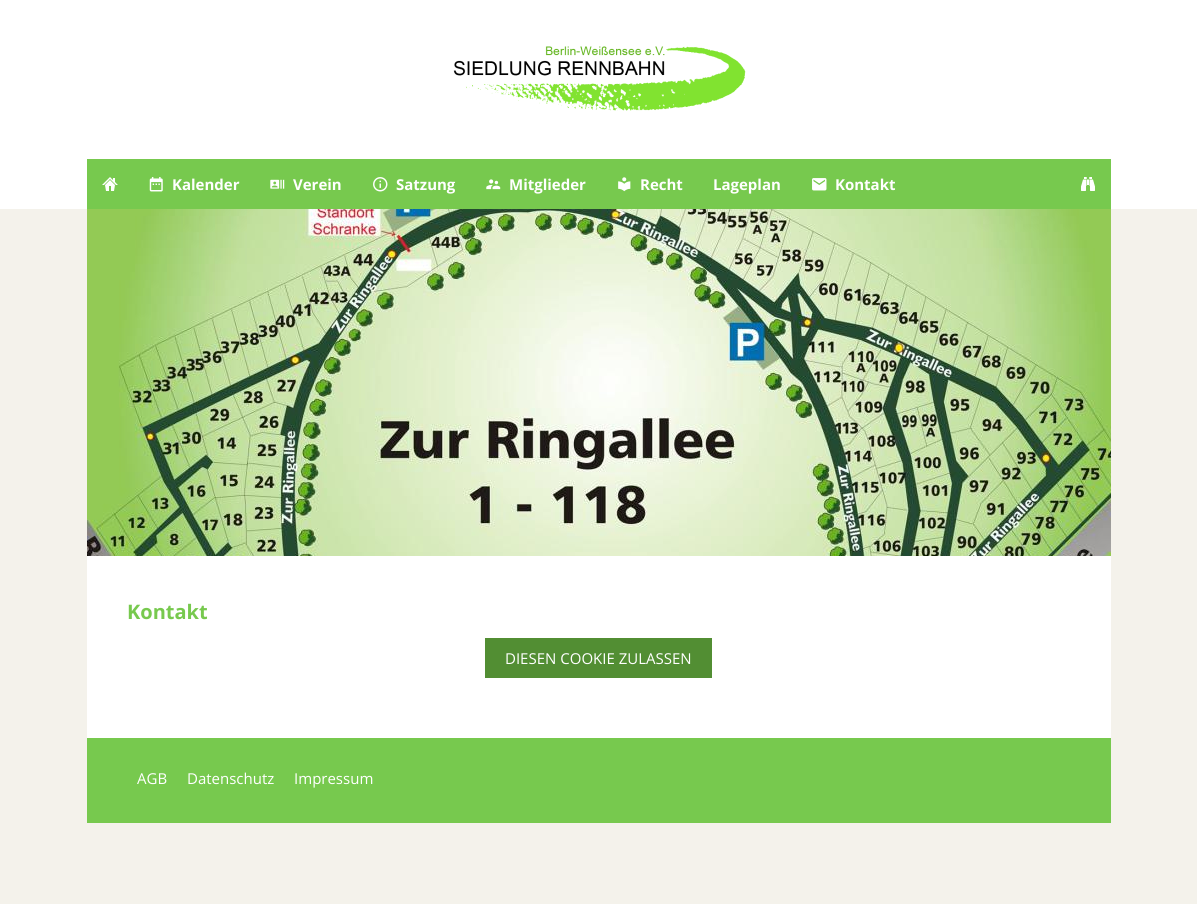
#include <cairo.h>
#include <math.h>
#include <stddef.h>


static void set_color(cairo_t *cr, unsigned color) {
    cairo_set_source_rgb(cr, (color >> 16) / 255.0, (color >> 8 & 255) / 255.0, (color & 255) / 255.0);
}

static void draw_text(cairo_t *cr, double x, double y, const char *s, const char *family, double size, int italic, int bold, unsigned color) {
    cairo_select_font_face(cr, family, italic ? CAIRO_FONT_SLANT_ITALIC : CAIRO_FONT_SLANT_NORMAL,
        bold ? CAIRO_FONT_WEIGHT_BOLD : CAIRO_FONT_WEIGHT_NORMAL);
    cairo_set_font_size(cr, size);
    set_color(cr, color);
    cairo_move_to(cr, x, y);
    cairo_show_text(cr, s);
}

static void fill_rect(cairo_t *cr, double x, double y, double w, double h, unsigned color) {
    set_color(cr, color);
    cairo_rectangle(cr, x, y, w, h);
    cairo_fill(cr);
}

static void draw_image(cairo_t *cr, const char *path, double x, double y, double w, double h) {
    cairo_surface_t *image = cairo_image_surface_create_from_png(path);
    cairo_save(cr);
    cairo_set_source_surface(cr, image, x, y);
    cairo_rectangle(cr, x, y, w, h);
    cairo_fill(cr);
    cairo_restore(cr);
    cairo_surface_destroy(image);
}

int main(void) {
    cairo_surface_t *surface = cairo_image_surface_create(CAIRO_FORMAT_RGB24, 1197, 904);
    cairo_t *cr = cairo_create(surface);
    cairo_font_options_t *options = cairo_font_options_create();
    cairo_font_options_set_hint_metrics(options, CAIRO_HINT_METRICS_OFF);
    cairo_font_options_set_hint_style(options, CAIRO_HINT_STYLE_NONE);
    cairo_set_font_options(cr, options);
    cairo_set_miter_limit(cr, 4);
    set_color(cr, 0xF4F2EB);
    cairo_paint(cr);
    fill_rect(cr, 0, 0, 1197, 209, 0xFFFFFF);
    draw_image(cr, "assets/img1.png", 453, 46, 293, 65);
    fill_rect(cr, 87, 159, 1024, 50, 0x77C94E);
    draw_image(cr, "assets/img2.png", 102, 177, 16, 14);
    draw_image(cr, "assets/img3.png", 149, 177, 14, 15);
    draw_text(cr, 172, 190, "Kalender", "Open Sans", 15, 0, 1, 0xFFFFFF);
    draw_image(cr, "assets/img4.png", 270, 179, 15, 10);
    draw_text(cr, 293, 190, "Verein", "Open Sans", 15, 0, 1, 0xFFFFFF);
    draw_image(cr, "assets/img5.png", 373, 177, 15, 15);
    draw_text(cr, 396, 190, "Satzung", "Open Sans", 15, 0, 1, 0xFFFFFF);
    draw_image(cr, "assets/img6.png", 486, 179, 15, 11);
    draw_text(cr, 509, 190, "Mitglieder", "Open Sans", 15, 0, 1, 0xFFFFFF);
    draw_image(cr, "assets/img7.png", 618, 177, 13, 15);
    draw_text(cr, 640, 190, "Recht", "Open Sans", 15, 0, 1, 0xFFFFFF);
    draw_text(cr, 713, 190, "Lageplan", "Open Sans", 15, 0, 1, 0xFFFFFF);
    draw_image(cr, "assets/img8.png", 812, 178, 15, 13);
    draw_text(cr, 835, 190, "Kontakt", "Open Sans", 15, 0, 1, 0xFFFFFF);
    draw_image(cr, "assets/img9.png", 1081, 177, 14, 14);
    draw_image(cr, "assets/img10.png", 87, 209, 1024, 347);
    fill_rect(cr, 87, 556, 1024, 182, 0xFFFFFF);
    draw_text(cr, 127, 619, "Kontakt", "Open Sans", 20, 0, 1, 0x77C94E);
    fill_rect(cr, 485, 638, 227, 40, 0x528E33);
    draw_text(cr, 505, 664, "DIESEN COOKIE ZULASSEN", "Open Sans", 15, 0, 0, 0xFFFFFF);
    fill_rect(cr, 87, 738, 1024, 85, 0x77C94E);
    draw_text(cr, 137, 784, "AGB", "Open Sans", 15, 0, 0, 0xFFFFFF);
    draw_text(cr, 187, 784, "Datenschutz", "Open Sans", 15, 0, 0, 0xFFFFFF);
    draw_text(cr, 294, 784, "Impressum", "Open Sans", 15, 0, 0, 0xFFFFFF);
    cairo_surface_write_to_png(surface, "output.png");
    cairo_font_options_destroy(options);
    cairo_destroy(cr);
    cairo_surface_destroy(surface);
    return 0;
}
